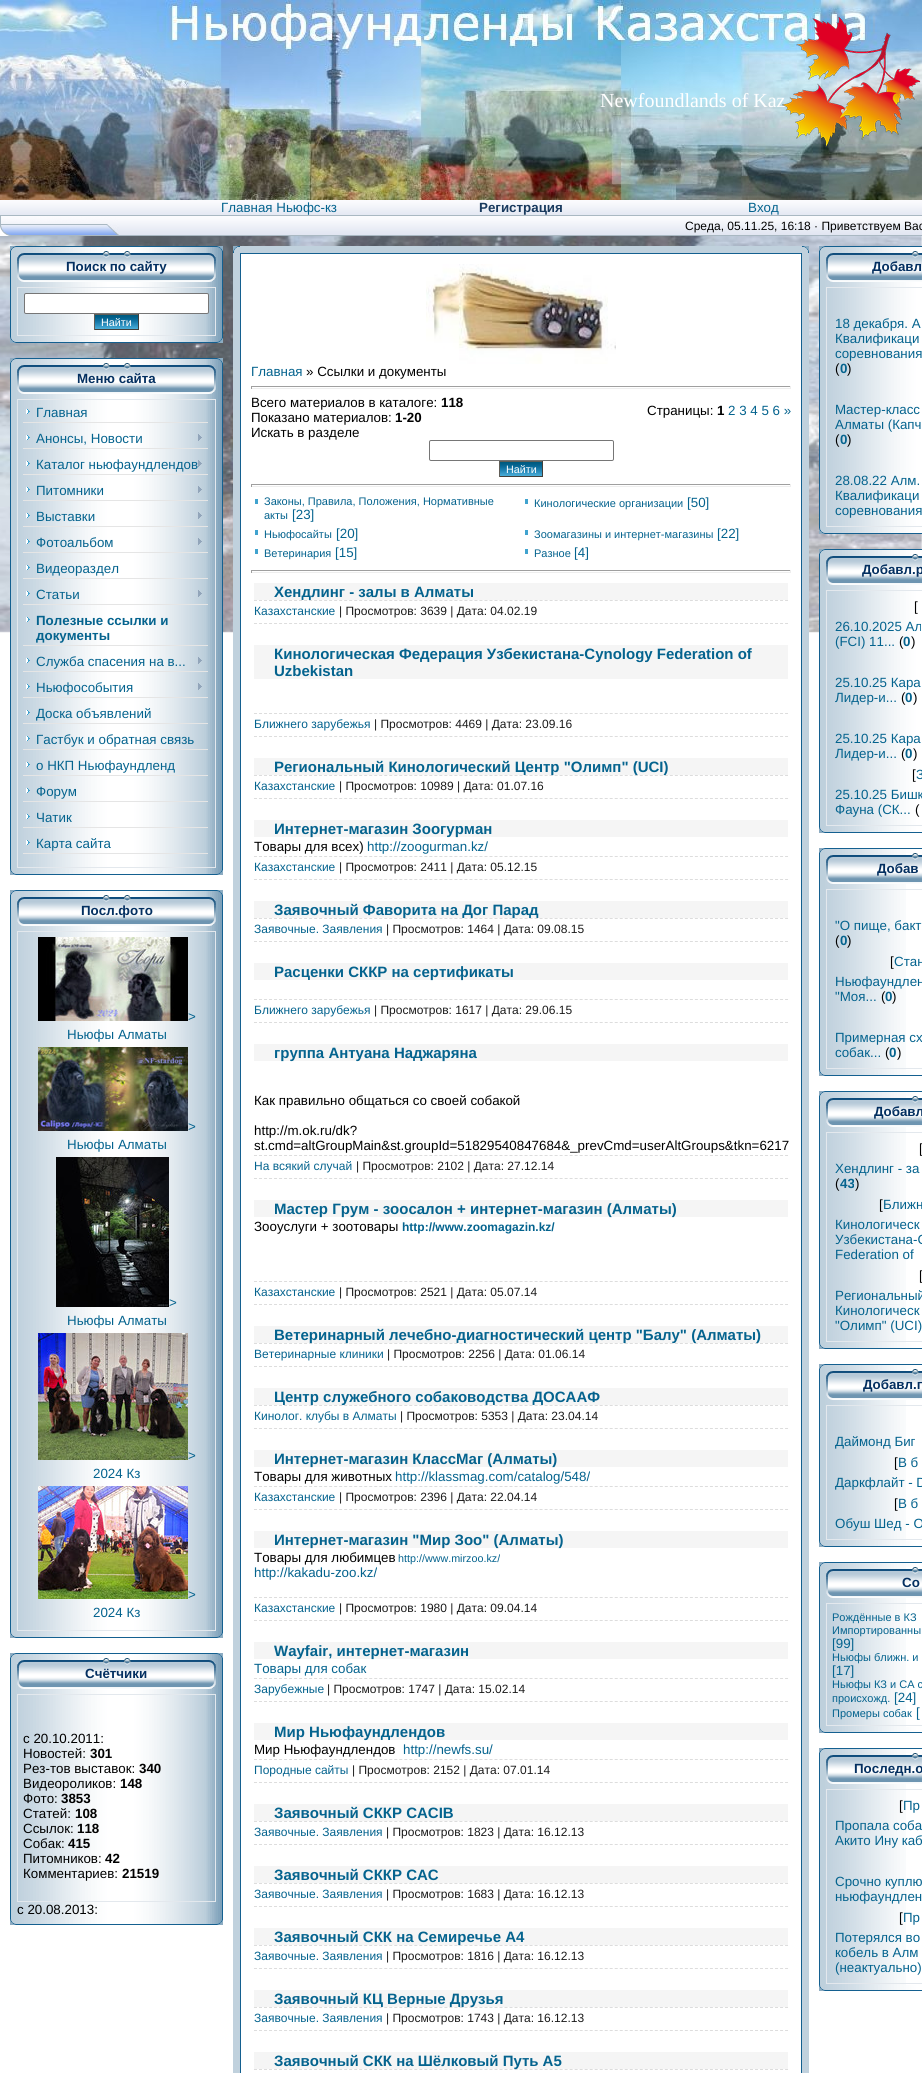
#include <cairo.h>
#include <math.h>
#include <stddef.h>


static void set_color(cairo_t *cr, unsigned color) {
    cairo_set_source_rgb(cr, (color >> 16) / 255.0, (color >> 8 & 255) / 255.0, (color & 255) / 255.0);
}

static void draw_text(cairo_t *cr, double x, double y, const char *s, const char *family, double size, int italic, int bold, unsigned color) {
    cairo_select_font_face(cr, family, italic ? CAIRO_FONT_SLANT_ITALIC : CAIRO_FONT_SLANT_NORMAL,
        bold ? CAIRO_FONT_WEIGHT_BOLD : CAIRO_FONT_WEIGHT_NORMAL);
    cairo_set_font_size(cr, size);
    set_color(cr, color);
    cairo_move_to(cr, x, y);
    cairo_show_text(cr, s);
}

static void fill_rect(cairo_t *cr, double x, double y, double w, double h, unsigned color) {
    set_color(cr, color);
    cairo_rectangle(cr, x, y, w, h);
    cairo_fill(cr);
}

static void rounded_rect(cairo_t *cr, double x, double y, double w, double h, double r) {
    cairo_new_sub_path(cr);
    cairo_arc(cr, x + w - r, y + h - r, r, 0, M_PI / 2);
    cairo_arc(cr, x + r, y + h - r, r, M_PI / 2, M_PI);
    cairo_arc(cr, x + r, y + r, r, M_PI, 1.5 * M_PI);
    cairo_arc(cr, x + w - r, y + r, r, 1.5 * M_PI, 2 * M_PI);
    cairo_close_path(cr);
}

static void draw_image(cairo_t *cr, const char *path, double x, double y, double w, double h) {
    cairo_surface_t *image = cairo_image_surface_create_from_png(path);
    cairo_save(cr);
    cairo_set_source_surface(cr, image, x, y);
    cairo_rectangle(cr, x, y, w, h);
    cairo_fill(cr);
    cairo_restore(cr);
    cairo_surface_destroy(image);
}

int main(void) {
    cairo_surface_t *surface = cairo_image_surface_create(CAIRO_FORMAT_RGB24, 922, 2073);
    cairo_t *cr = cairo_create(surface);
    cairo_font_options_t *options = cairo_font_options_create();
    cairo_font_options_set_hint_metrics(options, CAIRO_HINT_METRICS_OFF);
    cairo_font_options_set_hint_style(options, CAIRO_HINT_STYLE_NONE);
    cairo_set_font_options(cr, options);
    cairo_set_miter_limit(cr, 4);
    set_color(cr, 0xFFFFFF);
    cairo_paint(cr);
    draw_image(cr, "assets/img1.png", 0, 236, 922, 397);
    draw_image(cr, "assets/img3.png", 0, 0, 922, 200);
    draw_text(cr, 600, 107, "Newfoundlands of Kaz", "Liberation Serif", 20, 0, 0, 0xFFFFFF);
    draw_image(cr, "assets/img2.png", 782, 16, 140, 131);
    draw_image(cr, "assets/img4.png", 0, 200, 158, 15);
    draw_image(cr, "assets/img5.png", 158, 200, 242, 15);
    draw_text(cr, 221, 212, "Главная Ньюфс-кз", "Liberation Sans", 13.35, 0, 0, 0x04638E);
    draw_image(cr, "assets/img5.png", 400, 200, 242, 15);
    draw_text(cr, 479, 212, "Регистрация", "Liberation Sans", 13.35, 0, 1, 0x193A5E);
    draw_image(cr, "assets/img5.png", 642, 200, 242, 15);
    draw_text(cr, 748, 212, "Вход", "Liberation Sans", 13.35, 0, 0, 0x04638E);
    draw_image(cr, "assets/img6.png", 884, 200, 38, 15);
    draw_image(cr, "assets/img7.png", 0, 215, 119, 21);
    draw_image(cr, "assets/img8.png", 119, 215, 803, 21);
    draw_text(cr, 685, 230, "Среда, 05.11.25, 16:18 · Приветствуем Вас", "Liberation Sans", 12, 0, 0, 0x000000);
    draw_image(cr, "assets/img9.png", 10, 251, 213, 86);
    draw_image(cr, "assets/img10.png", 10, 246, 213, 5);
    draw_image(cr, "assets/img11.png", 17, 251, 199, 31);
    draw_text(cr, 66, 271, "Поиск по сайту", "Liberation Sans", 13.35, 0, 1, 0x032F60);
    cairo_rectangle(cr, 17.5, 287.5, 198, 48);
    set_color(cr, 0xE3E8ED);
    cairo_set_line_width(cr, 1);
    cairo_stroke(cr);
    set_color(cr, 0xFFFFFF);
    rounded_rect(cr, 24.5, 293.5, 184, 20, 1.5);
    cairo_fill_preserve(cr);
    set_color(cr, 0x767676);
    cairo_stroke(cr);
    draw_image(cr, "assets/img12.png", 95, 315, 43, 14);
    fill_rect(cr, 94, 314, 45, 1, 0x615E58);
    fill_rect(cr, 138, 314, 1, 16, 0x413F3B);
    fill_rect(cr, 94, 329, 45, 1, 0x413F3B);
    fill_rect(cr, 94, 314, 1, 16, 0x615E58);
    draw_text(cr, 101, 326, "Найти", "Liberation Sans", 10.75, 0, 0, 0xFFFFFF);
    draw_image(cr, "assets/img13.png", 10, 337, 213, 6);
    draw_image(cr, "assets/img14.png", 10, 363, 213, 506);
    draw_image(cr, "assets/img10.png", 10, 358, 213, 5);
    draw_image(cr, "assets/img11.png", 17, 363, 199, 31);
    draw_text(cr, 77, 383, "Меню сайта", "Liberation Sans", 13.35, 0, 1, 0x032F60);
    cairo_rectangle(cr, 17.5, 399.5, 198, 468);
    set_color(cr, 0xE3E8ED);
    cairo_stroke(cr);
    draw_image(cr, "assets/img15.png", 26, 409, 4, 5);
    fill_rect(cr, 23, 422, 185, 1, 0xE5E5E5);
    draw_text(cr, 36, 417, "Главная", "Liberation Sans", 13.35, 0, 0, 0x04638E);
    draw_image(cr, "assets/img15.png", 26, 435, 4, 5);
    fill_rect(cr, 23, 448, 185, 1, 0xE5E5E5);
    draw_text(cr, 36, 443, "Анонсы, Новости", "Liberation Sans", 13.35, 0, 0, 0x04638E);
    draw_image(cr, "assets/img16.png", 198, 434, 4, 7);
    draw_image(cr, "assets/img15.png", 26, 461, 4, 5);
    fill_rect(cr, 23, 474, 185, 1, 0xE5E5E5);
    draw_text(cr, 36, 469, "Каталог ньюфаундлендов", "Liberation Sans", 13.35, 0, 0, 0x04638E);
    draw_image(cr, "assets/img16.png", 198, 460, 4, 7);
    draw_image(cr, "assets/img15.png", 26, 487, 4, 5);
    fill_rect(cr, 23, 500, 185, 1, 0xE5E5E5);
    draw_text(cr, 36, 495, "Питомники", "Liberation Sans", 13.35, 0, 0, 0x04638E);
    draw_image(cr, "assets/img16.png", 198, 486, 4, 7);
    draw_image(cr, "assets/img15.png", 26, 513, 4, 5);
    fill_rect(cr, 23, 526, 185, 1, 0xE5E5E5);
    draw_text(cr, 36, 521, "Выставки", "Liberation Sans", 13.35, 0, 0, 0x04638E);
    draw_image(cr, "assets/img16.png", 198, 512, 4, 7);
    draw_image(cr, "assets/img15.png", 26, 539, 4, 5);
    fill_rect(cr, 23, 552, 185, 1, 0xE5E5E5);
    draw_text(cr, 36, 547, "Фотоальбом", "Liberation Sans", 13.35, 0, 0, 0x04638E);
    draw_image(cr, "assets/img16.png", 198, 538, 4, 7);
    draw_image(cr, "assets/img15.png", 26, 565, 4, 5);
    fill_rect(cr, 23, 578, 185, 1, 0xE5E5E5);
    draw_text(cr, 36, 573, "Видеораздел", "Liberation Sans", 13.35, 0, 0, 0x04638E);
    draw_image(cr, "assets/img15.png", 26, 591, 4, 5);
    fill_rect(cr, 23, 604, 185, 1, 0xE5E5E5);
    draw_text(cr, 36, 599, "Статьи", "Liberation Sans", 13.35, 0, 0, 0x04638E);
    draw_image(cr, "assets/img16.png", 198, 590, 4, 7);
    draw_image(cr, "assets/img15.png", 26, 617, 4, 5);
    fill_rect(cr, 23, 645, 185, 1, 0xE5E5E5);
    draw_text(cr, 36, 625, "Полезные ссылки и", "Liberation Sans", 13.35, 0, 1, 0x04638E);
    draw_text(cr, 36, 640, "документы", "Liberation Sans", 13.35, 0, 1, 0x04638E);
    draw_image(cr, "assets/img15.png", 26, 658, 4, 5);
    fill_rect(cr, 23, 671, 185, 1, 0xE5E5E5);
    draw_text(cr, 36, 666, "Служба спасения на в...", "Liberation Sans", 13.35, 0, 0, 0x04638E);
    draw_image(cr, "assets/img16.png", 198, 657, 4, 7);
    draw_image(cr, "assets/img15.png", 26, 684, 4, 5);
    fill_rect(cr, 23, 697, 185, 1, 0xE5E5E5);
    draw_text(cr, 36, 692, "Ньюфособытия", "Liberation Sans", 13.35, 0, 0, 0x04638E);
    draw_image(cr, "assets/img16.png", 198, 683, 4, 7);
    draw_image(cr, "assets/img15.png", 26, 710, 4, 5);
    fill_rect(cr, 23, 723, 185, 1, 0xE5E5E5);
    draw_text(cr, 36, 718, "Доска объявлений", "Liberation Sans", 13.35, 0, 0, 0x04638E);
    draw_image(cr, "assets/img15.png", 26, 736, 4, 5);
    fill_rect(cr, 23, 749, 185, 1, 0xE5E5E5);
    draw_text(cr, 36, 744, "Гастбук и обратная связь", "Liberation Sans", 13.35, 0, 0, 0x04638E);
    draw_image(cr, "assets/img15.png", 26, 762, 4, 5);
    fill_rect(cr, 23, 775, 185, 1, 0xE5E5E5);
    draw_text(cr, 36, 770, "о НКП Ньюфаундленд", "Liberation Sans", 13.35, 0, 0, 0x04638E);
    draw_image(cr, "assets/img15.png", 26, 788, 4, 5);
    fill_rect(cr, 23, 801, 185, 1, 0xE5E5E5);
    draw_text(cr, 36, 796, "Форум", "Liberation Sans", 13.35, 0, 0, 0x04638E);
    draw_image(cr, "assets/img15.png", 26, 814, 4, 5);
    fill_rect(cr, 23, 827, 185, 1, 0xE5E5E5);
    draw_text(cr, 36, 822, "Чатик", "Liberation Sans", 13.35, 0, 0, 0x04638E);
    draw_image(cr, "assets/img15.png", 26, 840, 4, 5);
    fill_rect(cr, 23, 853, 185, 1, 0xE5E5E5);
    draw_text(cr, 36, 848, "Карта сайта", "Liberation Sans", 13.35, 0, 0, 0x04638E);
    draw_image(cr, "assets/img13.png", 10, 869, 213, 6);
    draw_image(cr, "assets/img17.png", 10, 895, 213, 737);
    draw_image(cr, "assets/img10.png", 10, 890, 213, 5);
    draw_image(cr, "assets/img11.png", 17, 895, 199, 31);
    draw_text(cr, 81, 915, "Посл.фото", "Liberation Sans", 13.35, 0, 1, 0x032F60);
    cairo_rectangle(cr, 17.5, 931.5, 198, 699);
    set_color(cr, 0xE3E8ED);
    cairo_stroke(cr);
    draw_image(cr, "assets/img18.png", 38, 937, 150, 84);
    draw_text(cr, 188, 1021, ">", "Liberation Sans", 13.35, 0, 0, 0x04638E);
    draw_text(cr, 67, 1039, "Ньюфы Алматы", "Liberation Sans", 13.35, 0, 0, 0x04638E);
    draw_image(cr, "assets/img19.png", 38, 1047, 150, 84);
    draw_text(cr, 188, 1131, ">", "Liberation Sans", 13.35, 0, 0, 0x04638E);
    draw_text(cr, 67, 1149, "Ньюфы Алматы", "Liberation Sans", 13.35, 0, 0, 0x04638E);
    draw_image(cr, "assets/img20.png", 56, 1157, 113, 150);
    draw_text(cr, 169, 1307, ">", "Liberation Sans", 13.35, 0, 0, 0x04638E);
    draw_text(cr, 67, 1325, "Ньюфы Алматы", "Liberation Sans", 13.35, 0, 0, 0x04638E);
    draw_image(cr, "assets/img21.png", 38, 1333, 150, 127);
    draw_text(cr, 188, 1460, ">", "Liberation Sans", 13.35, 0, 0, 0x04638E);
    draw_text(cr, 93, 1478, "2024 Кз", "Liberation Sans", 13.35, 0, 0, 0x04638E);
    draw_image(cr, "assets/img22.png", 38, 1486, 150, 113);
    draw_text(cr, 188, 1599, ">", "Liberation Sans", 13.35, 0, 0, 0x04638E);
    draw_text(cr, 93, 1617, "2024 Кз", "Liberation Sans", 13.35, 0, 0, 0x04638E);
    draw_image(cr, "assets/img13.png", 10, 1632, 213, 6);
    draw_image(cr, "assets/img23.png", 10, 1658, 213, 261);
    draw_image(cr, "assets/img10.png", 10, 1653, 213, 5);
    draw_image(cr, "assets/img11.png", 17, 1658, 199, 31);
    draw_text(cr, 85, 1678, "Счётчики", "Liberation Sans", 13.35, 0, 1, 0x032F60);
    cairo_rectangle(cr, 17.5, 1694.5, 198, 207);
    set_color(cr, 0xE3E8ED);
    cairo_stroke(cr);
    draw_text(cr, 23, 1743, "с 20.10.2011:", "Liberation Sans", 13.35, 0, 0, 0x000000);
    draw_text(cr, 23, 1758, "Новостей:", "Liberation Sans", 13.35, 0, 0, 0x000000);
    draw_text(cr, 90, 1758, "301", "Liberation Sans", 13.35, 0, 1, 0x000000);
    draw_text(cr, 23, 1773, "Рез-тов выставок:", "Liberation Sans", 13.35, 0, 0, 0x000000);
    draw_text(cr, 139, 1773, "340", "Liberation Sans", 13.35, 0, 1, 0x000000);
    draw_text(cr, 23, 1788, "Видеороликов:", "Liberation Sans", 13.35, 0, 0, 0x000000);
    draw_text(cr, 120, 1788, "148", "Liberation Sans", 13.35, 0, 1, 0x000000);
    draw_text(cr, 23, 1803, "Фото:", "Liberation Sans", 13.35, 0, 0, 0x000000);
    draw_text(cr, 61, 1803, "3853", "Liberation Sans", 13.35, 0, 1, 0x000000);
    draw_text(cr, 23, 1818, "Статей:", "Liberation Sans", 13.35, 0, 0, 0x000000);
    draw_text(cr, 75, 1818, "108", "Liberation Sans", 13.35, 0, 1, 0x000000);
    draw_text(cr, 23, 1833, "Ссылок:", "Liberation Sans", 13.35, 0, 0, 0x000000);
    draw_text(cr, 77, 1833, "118", "Liberation Sans", 13.35, 0, 1, 0x000000);
    draw_text(cr, 23, 1848, "Собак:", "Liberation Sans", 13.35, 0, 0, 0x000000);
    draw_text(cr, 68, 1848, "415", "Liberation Sans", 13.35, 0, 1, 0x000000);
    draw_text(cr, 23, 1863, "Питомников:", "Liberation Sans", 13.35, 0, 0, 0x000000);
    draw_text(cr, 105, 1863, "42", "Liberation Sans", 13.35, 0, 1, 0x000000);
    draw_text(cr, 23, 1878, "Комментариев:", "Liberation Sans", 13.35, 0, 0, 0x000000);
    draw_text(cr, 122, 1878, "21519", "Liberation Sans", 13.35, 0, 1, 0x000000);
    draw_text(cr, 17, 1914, "с 20.08.2013:", "Liberation Sans", 13.35, 0, 0, 0x000000);
    draw_image(cr, "assets/img13.png", 10, 1919, 213, 6);
    draw_image(cr, "assets/img24.png", 233, 246, 7, 7);
    fill_rect(cr, 240, 246, 562, 7, 0xC0D1DD);
    draw_image(cr, "assets/img25.png", 802, 246, 7, 7);
    fill_rect(cr, 233, 253, 7, 1820, 0xC0D1DD);
    fill_rect(cr, 241, 254, 560, 379, 0xFFFFFF);
    cairo_rectangle(cr, 240.5, 253.5, 561, 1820);
    set_color(cr, 0x146090);
    cairo_stroke(cr);
    draw_image(cr, "assets/img26.png", 426, 264, 190, 100);
    draw_text(cr, 251, 376, "Главная", "Liberation Sans", 13.35, 0, 0, 0x04638E);
    draw_text(cr, 306, 376, "» Ссылки и документы", "Liberation Sans", 13.35, 0, 0, 0x000000);
    fill_rect(cr, 251, 386, 540, 1, 0x9F9F9F);
    fill_rect(cr, 790, 386, 1, 3, 0xEEEEEE);
    fill_rect(cr, 251, 388, 540, 1, 0xEEEEEE);
    fill_rect(cr, 251, 386, 1, 3, 0x9F9F9F);
    draw_text(cr, 251, 407, "Всего материалов в каталоге:", "Liberation Sans", 13.35, 0, 0, 0x000000);
    draw_text(cr, 441, 407, "118", "Liberation Sans", 13.35, 0, 1, 0x000000);
    draw_text(cr, 251, 422, "Показано материалов:", "Liberation Sans", 13.35, 0, 0, 0x000000);
    draw_text(cr, 395, 422, "1-20", "Liberation Sans", 13.35, 0, 1, 0x000000);
    draw_text(cr, 647, 415, "Страницы:", "Liberation Sans", 13.35, 0, 0, 0x000000);
    draw_text(cr, 717, 415, "1", "Liberation Sans", 13.35, 0, 1, 0x000000);
    draw_text(cr, 728, 415, "2 3 4 5 6 »", "Liberation Sans", 13.35, 0, 0, 0x04638E);
    draw_text(cr, 251, 437, "Искать в разделе", "Liberation Sans", 13.35, 0, 0, 0x000000);
    rounded_rect(cr, 429.5, 440.5, 184, 20, 1.5);
    set_color(cr, 0x767676);
    cairo_stroke(cr);
    draw_image(cr, "assets/img27.png", 500, 462, 42, 14);
    fill_rect(cr, 499, 461, 44, 1, 0x615E58);
    fill_rect(cr, 542, 461, 1, 16, 0x413F3B);
    fill_rect(cr, 499, 476, 44, 1, 0x413F3B);
    fill_rect(cr, 499, 461, 1, 16, 0x615E58);
    draw_text(cr, 506, 473, "Найти", "Liberation Sans", 10.75, 0, 0, 0xFFFFFF);
    fill_rect(cr, 251, 484, 540, 1, 0x9F9F9F);
    fill_rect(cr, 790, 484, 1, 3, 0xEEEEEE);
    fill_rect(cr, 251, 486, 540, 1, 0xEEEEEE);
    fill_rect(cr, 251, 484, 1, 3, 0x9F9F9F);
    fill_rect(cr, 255, 499, 3, 5, 0x40A3CF);
    draw_text(cr, 264, 505, "Законы, Правила, Положения, Нормативные", "Liberation Sans", 11, 0, 0, 0x04638E);
    draw_text(cr, 264, 519, "акты", "Liberation Sans", 11, 0, 0, 0x04638E);
    draw_text(cr, 292, 519, "[23]", "Liberation Sans", 13.35, 0, 0, 0x04638E);
    fill_rect(cr, 525, 499, 3, 5, 0x40A3CF);
    draw_text(cr, 534, 507, "Кинологические организации", "Liberation Sans", 11, 0, 0, 0x04638E);
    draw_text(cr, 687, 507, "[50]", "Liberation Sans", 13.35, 0, 0, 0x04638E);
    fill_rect(cr, 255, 530, 3, 5, 0x40A3CF);
    draw_text(cr, 264, 538, "Ньюфосайты", "Liberation Sans", 11, 0, 0, 0x04638E);
    draw_text(cr, 336, 538, "[20]", "Liberation Sans", 13.35, 0, 0, 0x04638E);
    fill_rect(cr, 525, 530, 3, 5, 0x40A3CF);
    draw_text(cr, 534, 538, "Зоомагазины и интернет-магазины", "Liberation Sans", 11, 0, 0, 0x04638E);
    draw_text(cr, 717, 538, "[22]", "Liberation Sans", 13.35, 0, 0, 0x04638E);
    fill_rect(cr, 255, 549, 3, 5, 0x40A3CF);
    draw_text(cr, 264, 557, "Ветеринария", "Liberation Sans", 11, 0, 0, 0x04638E);
    draw_text(cr, 335, 557, "[15]", "Liberation Sans", 13.35, 0, 0, 0x04638E);
    fill_rect(cr, 525, 549, 3, 5, 0x40A3CF);
    draw_text(cr, 534, 557, "Разное", "Liberation Sans", 11, 0, 0, 0x04638E);
    draw_text(cr, 574, 557, "[4]", "Liberation Sans", 13.35, 0, 0, 0x04638E);
    fill_rect(cr, 251, 570, 540, 1, 0x9F9F9F);
    fill_rect(cr, 790, 570, 1, 3, 0xEEEEEE);
    fill_rect(cr, 251, 572, 540, 1, 0xEEEEEE);
    fill_rect(cr, 251, 570, 1, 3, 0x9F9F9F);
    fill_rect(cr, 254, 583, 534, 17, 0xF5F5F5);
    draw_text(cr, 274, 597, "Хендлинг - залы в Алматы", "Liberation Sans", 15, 0, 1, 0x04638E);
    cairo_new_path(cr);
    cairo_move_to(cr, 254, 600.5);
    cairo_line_to(cr, 788, 600.5);
    set_color(cr, 0xDDDDDD);
    cairo_set_dash(cr, (double[]){3, 2.01}, 2, 0);
    cairo_stroke(cr);
    cairo_new_path(cr);
    cairo_move_to(cr, 254, 623.5);
    cairo_line_to(cr, 788, 623.5);
    cairo_stroke(cr);
    draw_text(cr, 254, 615, "Казахстанские", "Liberation Sans", 12, 0, 0, 0x04638E);
    draw_text(cr, 339, 615, "| Просмотров: 3639 | Дата: 04.02.19", "Liberation Sans", 12, 0, 0, 0x1A1A1A);
    fill_rect(cr, 254, 645, 534, 34, 0xF5F5F5);
    draw_text(cr, 274, 659, "Кинологическая Федерация Узбекистана-Cynology Federation of", "Liberation Sans", 15, 0, 1, 0x04638E);
    draw_text(cr, 274, 676, "Uzbekistan", "Liberation Sans", 15, 0, 1, 0x04638E);
    cairo_new_path(cr);
    cairo_move_to(cr, 254, 713.5);
    cairo_line_to(cr, 788, 713.5);
    set_color(cr, 0xDDDDDD);
    cairo_stroke(cr);
    cairo_new_path(cr);
    cairo_move_to(cr, 254, 736.5);
    cairo_line_to(cr, 788, 736.5);
    cairo_stroke(cr);
    draw_text(cr, 254, 728, "Ближнего зарубежья", "Liberation Sans", 12, 0, 0, 0x04638E);
    draw_text(cr, 374, 728, "| Просмотров: 4469 | Дата: 23.09.16", "Liberation Sans", 12, 0, 0, 0x1A1A1A);
    fill_rect(cr, 254, 758, 534, 17, 0xF5F5F5);
    cairo_new_path(cr);
    cairo_move_to(cr, 254, 775.5);
    cairo_line_to(cr, 788, 775.5);
    set_color(cr, 0xDDDDDD);
    cairo_stroke(cr);
    draw_text(cr, 274, 772, "Региональный Кинологический Центр \"Олимп\" (UCI)", "Liberation Sans", 15, 0, 1, 0x04638E);
    cairo_new_path(cr);
    cairo_move_to(cr, 254, 798.5);
    cairo_line_to(cr, 788, 798.5);
    set_color(cr, 0xDDDDDD);
    cairo_stroke(cr);
    draw_text(cr, 254, 790, "Казахстанские", "Liberation Sans", 12, 0, 0, 0x04638E);
    draw_text(cr, 339, 790, "| Просмотров: 10989 | Дата: 01.07.16", "Liberation Sans", 12, 0, 0, 0x1A1A1A);
    fill_rect(cr, 254, 820, 534, 17, 0xF5F5F5);
    draw_text(cr, 274, 834, "Интернет-магазин Зоогурман", "Liberation Sans", 15, 0, 1, 0x04638E);
    draw_text(cr, 254, 851, "Товары для всех)", "Liberation Sans", 13.35, 0, 0, 0x000000);
    draw_text(cr, 367, 851, "http://zoogurman.kz/", "Liberation Sans", 13.35, 0, 0, 0x04638E);
    cairo_new_path(cr);
    cairo_move_to(cr, 254, 856.5);
    cairo_line_to(cr, 788, 856.5);
    set_color(cr, 0xDDDDDD);
    cairo_stroke(cr);
    cairo_new_path(cr);
    cairo_move_to(cr, 254, 879.5);
    cairo_line_to(cr, 788, 879.5);
    cairo_stroke(cr);
    draw_text(cr, 254, 871, "Казахстанские", "Liberation Sans", 12, 0, 0, 0x04638E);
    draw_text(cr, 339, 871, "| Просмотров: 2411 | Дата: 05.12.15", "Liberation Sans", 12, 0, 0, 0x1A1A1A);
    fill_rect(cr, 254, 901, 534, 17, 0xF5F5F5);
    cairo_new_path(cr);
    cairo_move_to(cr, 254, 918.5);
    cairo_line_to(cr, 788, 918.5);
    set_color(cr, 0xDDDDDD);
    cairo_stroke(cr);
    draw_text(cr, 274, 915, "Заявочный Фаворита на Дог Парад", "Liberation Sans", 15, 0, 1, 0x04638E);
    cairo_new_path(cr);
    cairo_move_to(cr, 254, 941.5);
    cairo_line_to(cr, 788, 941.5);
    set_color(cr, 0xDDDDDD);
    cairo_stroke(cr);
    draw_text(cr, 254, 933, "Заявочные. Заявления", "Liberation Sans", 12, 0, 0, 0x04638E);
    draw_text(cr, 386, 933, "| Просмотров: 1464 | Дата: 09.08.15", "Liberation Sans", 12, 0, 0, 0x1A1A1A);
    fill_rect(cr, 254, 963, 534, 17, 0xF5F5F5);
    draw_text(cr, 274, 977, "Расценки СККР на сертификаты", "Liberation Sans", 15, 0, 1, 0x04638E);
    cairo_new_path(cr);
    cairo_move_to(cr, 254, 999.5);
    cairo_line_to(cr, 788, 999.5);
    set_color(cr, 0xDDDDDD);
    cairo_stroke(cr);
    cairo_new_path(cr);
    cairo_move_to(cr, 254, 1022.5);
    cairo_line_to(cr, 788, 1022.5);
    cairo_stroke(cr);
    draw_text(cr, 254, 1014, "Ближнего зарубежья", "Liberation Sans", 12, 0, 0, 0x04638E);
    draw_text(cr, 374, 1014, "| Просмотров: 1617 | Дата: 29.06.15", "Liberation Sans", 12, 0, 0, 0x1A1A1A);
    fill_rect(cr, 254, 1044, 534, 17, 0xF5F5F5);
    draw_text(cr, 274, 1058, "группа Антуана Наджаряна", "Liberation Sans", 15, 0, 1, 0x04638E);
    draw_text(cr, 254, 1105, "Как правильно общаться со своей собакой", "Liberation Sans", 13.35, 0, 0, 0x000000);
    draw_text(cr, 254, 1135, "http://m.ok.ru/dk?", "Liberation Sans", 13.35, 0, 0, 0x000000);
    draw_text(cr, 254, 1150, "st.cmd=altGroupMain&st.groupId=51829540847684&_prevCmd=userAltGroups&tkn=6217", "Liberation Sans", 13.35, 0, 0, 0x000000);
    cairo_new_path(cr);
    cairo_move_to(cr, 254, 1155.5);
    cairo_line_to(cr, 788, 1155.5);
    set_color(cr, 0xDDDDDD);
    cairo_stroke(cr);
    cairo_new_path(cr);
    cairo_move_to(cr, 254, 1178.5);
    cairo_line_to(cr, 788, 1178.5);
    cairo_stroke(cr);
    draw_text(cr, 254, 1170, "На всякий случай", "Liberation Sans", 12, 0, 0, 0x04638E);
    draw_text(cr, 356, 1170, "| Просмотров: 2102 | Дата: 27.12.14", "Liberation Sans", 12, 0, 0, 0x1A1A1A);
    fill_rect(cr, 254, 1200, 534, 17, 0xF5F5F5);
    draw_text(cr, 274, 1214, "Мастер Грум - зоосалон + интернет-магазин (Алматы)", "Liberation Sans", 15, 0, 1, 0x04638E);
    draw_text(cr, 254, 1231, "Зооуслуги + зоотовары", "Liberation Sans", 13.35, 0, 0, 0x000000);
    draw_text(cr, 402, 1231, "http://www.zoomagazin.kz/", "Liberation Sans", 12, 0, 1, 0x04638E);
    cairo_new_path(cr);
    cairo_move_to(cr, 254, 1281.5);
    cairo_line_to(cr, 788, 1281.5);
    set_color(cr, 0xDDDDDD);
    cairo_stroke(cr);
    cairo_new_path(cr);
    cairo_move_to(cr, 254, 1304.5);
    cairo_line_to(cr, 788, 1304.5);
    cairo_stroke(cr);
    draw_text(cr, 254, 1296, "Казахстанские", "Liberation Sans", 12, 0, 0, 0x04638E);
    draw_text(cr, 339, 1296, "| Просмотров: 2521 | Дата: 05.07.14", "Liberation Sans", 12, 0, 0, 0x1A1A1A);
    fill_rect(cr, 254, 1326, 534, 17, 0xF5F5F5);
    cairo_new_path(cr);
    cairo_move_to(cr, 254, 1343.5);
    cairo_line_to(cr, 788, 1343.5);
    set_color(cr, 0xDDDDDD);
    cairo_stroke(cr);
    draw_text(cr, 274, 1340, "Ветеринарный лечебно-диагностический центр \"Балу\" (Алматы)", "Liberation Sans", 15, 0, 1, 0x04638E);
    cairo_new_path(cr);
    cairo_move_to(cr, 254, 1366.5);
    cairo_line_to(cr, 788, 1366.5);
    set_color(cr, 0xDDDDDD);
    cairo_stroke(cr);
    draw_text(cr, 254, 1358, "Ветеринарные клиники", "Liberation Sans", 12, 0, 0, 0x04638E);
    draw_text(cr, 387, 1358, "| Просмотров: 2256 | Дата: 01.06.14", "Liberation Sans", 12, 0, 0, 0x1A1A1A);
    fill_rect(cr, 254, 1388, 534, 17, 0xF5F5F5);
    cairo_new_path(cr);
    cairo_move_to(cr, 254, 1405.5);
    cairo_line_to(cr, 788, 1405.5);
    set_color(cr, 0xDDDDDD);
    cairo_stroke(cr);
    draw_text(cr, 274, 1402, "Центр служебного собаководства ДОСААФ", "Liberation Sans", 15, 0, 1, 0x04638E);
    cairo_new_path(cr);
    cairo_move_to(cr, 254, 1428.5);
    cairo_line_to(cr, 788, 1428.5);
    set_color(cr, 0xDDDDDD);
    cairo_stroke(cr);
    draw_text(cr, 254, 1420, "Кинолог. клубы в Алматы", "Liberation Sans", 12, 0, 0, 0x04638E);
    draw_text(cr, 400, 1420, "| Просмотров: 5353 | Дата: 23.04.14", "Liberation Sans", 12, 0, 0, 0x1A1A1A);
    fill_rect(cr, 254, 1450, 534, 17, 0xF5F5F5);
    draw_text(cr, 274, 1464, "Интернет-магазин КлассМаг (Алматы)", "Liberation Sans", 15, 0, 1, 0x04638E);
    draw_text(cr, 254, 1481, "Товары для животных", "Liberation Sans", 13.35, 0, 0, 0x000000);
    draw_text(cr, 395, 1481, "http://klassmag.com/catalog/548/", "Liberation Sans", 13.35, 0, 0, 0x04638E);
    cairo_new_path(cr);
    cairo_move_to(cr, 254, 1486.5);
    cairo_line_to(cr, 788, 1486.5);
    set_color(cr, 0xDDDDDD);
    cairo_stroke(cr);
    cairo_new_path(cr);
    cairo_move_to(cr, 254, 1509.5);
    cairo_line_to(cr, 788, 1509.5);
    cairo_stroke(cr);
    draw_text(cr, 254, 1501, "Казахстанские", "Liberation Sans", 12, 0, 0, 0x04638E);
    draw_text(cr, 339, 1501, "| Просмотров: 2396 | Дата: 22.04.14", "Liberation Sans", 12, 0, 0, 0x1A1A1A);
    fill_rect(cr, 254, 1531, 534, 17, 0xF5F5F5);
    draw_text(cr, 274, 1545, "Интернет-магазин \"Мир Зоо\" (Алматы)", "Liberation Sans", 15, 0, 1, 0x04638E);
    draw_text(cr, 254, 1562, "Товары для любимцев", "Liberation Sans", 13.35, 0, 0, 0x000000);
    draw_text(cr, 398, 1562, "http://www.mirzoo.kz/", "Liberation Sans", 10.75, 0, 0, 0x04638E);
    draw_text(cr, 254, 1577, "http://kakadu-zoo.kz/", "Liberation Sans", 13.35, 0, 0, 0x04638E);
    cairo_new_path(cr);
    cairo_move_to(cr, 254, 1597.5);
    cairo_line_to(cr, 788, 1597.5);
    set_color(cr, 0xDDDDDD);
    cairo_stroke(cr);
    cairo_new_path(cr);
    cairo_move_to(cr, 254, 1620.5);
    cairo_line_to(cr, 788, 1620.5);
    cairo_stroke(cr);
    draw_text(cr, 254, 1612, "Казахстанские", "Liberation Sans", 12, 0, 0, 0x04638E);
    draw_text(cr, 339, 1612, "| Просмотров: 1980 | Дата: 09.04.14", "Liberation Sans", 12, 0, 0, 0x1A1A1A);
    fill_rect(cr, 254, 1642, 534, 17, 0xF5F5F5);
    draw_text(cr, 274, 1656, "Wayfair, интернет-магазин", "Liberation Sans", 15, 0, 1, 0x04638E);
    draw_text(cr, 254, 1673, "Товары для собак", "Liberation Sans", 13.35, 0, 0, 0x04638E);
    cairo_new_path(cr);
    cairo_move_to(cr, 254, 1678.5);
    cairo_line_to(cr, 788, 1678.5);
    set_color(cr, 0xDDDDDD);
    cairo_stroke(cr);
    cairo_new_path(cr);
    cairo_move_to(cr, 254, 1701.5);
    cairo_line_to(cr, 788, 1701.5);
    cairo_stroke(cr);
    draw_text(cr, 254, 1693, "Зарубежные", "Liberation Sans", 12, 0, 0, 0x04638E);
    draw_text(cr, 327, 1693, "| Просмотров: 1747 | Дата: 15.02.14", "Liberation Sans", 12, 0, 0, 0x1A1A1A);
    fill_rect(cr, 254, 1723, 534, 17, 0xF5F5F5);
    draw_text(cr, 274, 1737, "Мир Ньюфаундлендов", "Liberation Sans", 15, 0, 1, 0x04638E);
    draw_text(cr, 254, 1754, "Мир Ньюфаундлендов", "Liberation Sans", 13.35, 0, 0, 0x000000);
    draw_text(cr, 403, 1754, "http://newfs.su/", "Liberation Sans", 13.35, 0, 0, 0x04638E);
    cairo_new_path(cr);
    cairo_move_to(cr, 254, 1759.5);
    cairo_line_to(cr, 788, 1759.5);
    set_color(cr, 0xDDDDDD);
    cairo_stroke(cr);
    cairo_new_path(cr);
    cairo_move_to(cr, 254, 1782.5);
    cairo_line_to(cr, 788, 1782.5);
    cairo_stroke(cr);
    draw_text(cr, 254, 1774, "Породные сайты", "Liberation Sans", 12, 0, 0, 0x04638E);
    draw_text(cr, 352, 1774, "| Просмотров: 2152 | Дата: 07.01.14", "Liberation Sans", 12, 0, 0, 0x1A1A1A);
    fill_rect(cr, 254, 1804, 534, 17, 0xF5F5F5);
    draw_text(cr, 274, 1818, "Заявочный СККР CACIB", "Liberation Sans", 15, 0, 1, 0x04638E);
    cairo_new_path(cr);
    cairo_move_to(cr, 254, 1821.5);
    cairo_line_to(cr, 788, 1821.5);
    set_color(cr, 0xDDDDDD);
    cairo_stroke(cr);
    cairo_new_path(cr);
    cairo_move_to(cr, 254, 1844.5);
    cairo_line_to(cr, 788, 1844.5);
    cairo_stroke(cr);
    draw_text(cr, 254, 1836, "Заявочные. Заявления", "Liberation Sans", 12, 0, 0, 0x04638E);
    draw_text(cr, 386, 1836, "| Просмотров: 1823 | Дата: 16.12.13", "Liberation Sans", 12, 0, 0, 0x1A1A1A);
    fill_rect(cr, 254, 1866, 534, 17, 0xF5F5F5);
    draw_text(cr, 274, 1880, "Заявочный СККР САС", "Liberation Sans", 15, 0, 1, 0x04638E);
    cairo_new_path(cr);
    cairo_move_to(cr, 254, 1883.5);
    cairo_line_to(cr, 788, 1883.5);
    set_color(cr, 0xDDDDDD);
    cairo_stroke(cr);
    cairo_new_path(cr);
    cairo_move_to(cr, 254, 1906.5);
    cairo_line_to(cr, 788, 1906.5);
    cairo_stroke(cr);
    draw_text(cr, 254, 1898, "Заявочные. Заявления", "Liberation Sans", 12, 0, 0, 0x04638E);
    draw_text(cr, 386, 1898, "| Просмотров: 1683 | Дата: 16.12.13", "Liberation Sans", 12, 0, 0, 0x1A1A1A);
    fill_rect(cr, 254, 1928, 534, 17, 0xF5F5F5);
    cairo_new_path(cr);
    cairo_move_to(cr, 254, 1945.5);
    cairo_line_to(cr, 788, 1945.5);
    set_color(cr, 0xDDDDDD);
    cairo_stroke(cr);
    draw_text(cr, 274, 1942, "Заявочный СКК на Семиречье А4", "Liberation Sans", 15, 0, 1, 0x04638E);
    cairo_new_path(cr);
    cairo_move_to(cr, 254, 1968.5);
    cairo_line_to(cr, 788, 1968.5);
    set_color(cr, 0xDDDDDD);
    cairo_stroke(cr);
    draw_text(cr, 254, 1960, "Заявочные. Заявления", "Liberation Sans", 12, 0, 0, 0x04638E);
    draw_text(cr, 386, 1960, "| Просмотров: 1816 | Дата: 16.12.13", "Liberation Sans", 12, 0, 0, 0x1A1A1A);
    fill_rect(cr, 254, 1990, 534, 17, 0xF5F5F5);
    cairo_new_path(cr);
    cairo_move_to(cr, 254, 2007.5);
    cairo_line_to(cr, 788, 2007.5);
    set_color(cr, 0xDDDDDD);
    cairo_stroke(cr);
    draw_text(cr, 274, 2004, "Заявочный КЦ Верные Друзья", "Liberation Sans", 15, 0, 1, 0x04638E);
    cairo_new_path(cr);
    cairo_move_to(cr, 254, 2030.5);
    cairo_line_to(cr, 788, 2030.5);
    set_color(cr, 0xDDDDDD);
    cairo_stroke(cr);
    draw_text(cr, 254, 2022, "Заявочные. Заявления", "Liberation Sans", 12, 0, 0, 0x04638E);
    draw_text(cr, 386, 2022, "| Просмотров: 1743 | Дата: 16.12.13", "Liberation Sans", 12, 0, 0, 0x1A1A1A);
    fill_rect(cr, 254, 2052, 534, 17, 0xF5F5F5);
    cairo_new_path(cr);
    cairo_move_to(cr, 254, 2069.5);
    cairo_line_to(cr, 788, 2069.5);
    set_color(cr, 0xDDDDDD);
    cairo_stroke(cr);
    draw_text(cr, 274, 2066, "Заявочный СКК на Шёлковый Путь А5", "Liberation Sans", 15, 0, 1, 0x04638E);
    fill_rect(cr, 802, 253, 7, 1820, 0xC0D1DD);
    draw_image(cr, "assets/img28.png", 819, 251, 103, 277);
    draw_image(cr, "assets/img29.png", 819, 246, 103, 5);
    draw_image(cr, "assets/img30.png", 826, 251, 96, 31);
    draw_text(cr, 872, 271, "Добавл", "Liberation Sans", 13.35, 0, 1, 0x032F60);
    cairo_rectangle(cr, 826.5, 287.5, 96, 239);
    set_color(cr, 0xE3E8ED);
    cairo_set_dash(cr, NULL, 0, 0);
    cairo_stroke(cr);
    draw_text(cr, 835, 328, "18 декабря. А", "Liberation Sans", 13.35, 0, 0, 0x04638E);
    draw_text(cr, 835, 343, "Квалификаци", "Liberation Sans", 13.35, 0, 0, 0x04638E);
    draw_text(cr, 835, 358, "соревнования", "Liberation Sans", 13.35, 0, 0, 0x04638E);
    draw_text(cr, 835, 373, "(", "Liberation Sans", 13.35, 0, 0, 0x000000);
    draw_text(cr, 840, 373, "0", "Liberation Sans", 13.35, 0, 1, 0x04638E);
    draw_text(cr, 847, 373, ")", "Liberation Sans", 13.35, 0, 0, 0x000000);
    draw_text(cr, 835, 414, "Мастер-класс", "Liberation Sans", 13.35, 0, 0, 0x04638E);
    draw_text(cr, 835, 429, "Алматы (Капч", "Liberation Sans", 13.35, 0, 0, 0x04638E);
    draw_text(cr, 835, 444, "(", "Liberation Sans", 13.35, 0, 0, 0x000000);
    draw_text(cr, 840, 444, "0", "Liberation Sans", 13.35, 0, 1, 0x04638E);
    draw_text(cr, 847, 444, ")", "Liberation Sans", 13.35, 0, 0, 0x000000);
    draw_text(cr, 835, 485, "28.08.22 Алм.", "Liberation Sans", 13.35, 0, 0, 0x04638E);
    draw_text(cr, 835, 500, "Квалификаци", "Liberation Sans", 13.35, 0, 0, 0x04638E);
    draw_text(cr, 835, 515, "соревнования", "Liberation Sans", 13.35, 0, 0, 0x04638E);
    draw_image(cr, "assets/img31.png", 819, 528, 103, 6);
    draw_image(cr, "assets/img32.png", 819, 554, 103, 273);
    draw_image(cr, "assets/img29.png", 819, 549, 103, 5);
    draw_image(cr, "assets/img30.png", 826, 554, 96, 31);
    draw_text(cr, 862, 574, "Добавл.р", "Liberation Sans", 13.35, 0, 1, 0x032F60);
    cairo_rectangle(cr, 826.5, 590.5, 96, 235);
    set_color(cr, 0xE3E8ED);
    cairo_stroke(cr);
    draw_text(cr, 914, 611, "[", "Liberation Sans", 13.35, 0, 0, 0x000000);
    draw_text(cr, 835, 631, "26.10.2025 Ал", "Liberation Sans", 13.35, 0, 0, 0x04638E);
    draw_text(cr, 835, 646, "(FCI) 11...", "Liberation Sans", 13.35, 0, 0, 0x04638E);
    draw_text(cr, 899, 646, "(", "Liberation Sans", 13.35, 0, 0, 0x000000);
    draw_text(cr, 903, 646, "0", "Liberation Sans", 13.35, 0, 1, 0x04638E);
    draw_text(cr, 911, 646, ")", "Liberation Sans", 13.35, 0, 0, 0x000000);
    draw_text(cr, 835, 687, "25.10.25 Кара", "Liberation Sans", 13.35, 0, 0, 0x04638E);
    draw_text(cr, 835, 702, "Лидер-и...", "Liberation Sans", 13.35, 0, 0, 0x04638E);
    draw_text(cr, 901, 702, "(", "Liberation Sans", 13.35, 0, 0, 0x000000);
    draw_text(cr, 905, 702, "0", "Liberation Sans", 13.35, 0, 1, 0x04638E);
    draw_text(cr, 913, 702, ")", "Liberation Sans", 13.35, 0, 0, 0x000000);
    draw_text(cr, 835, 743, "25.10.25 Кара", "Liberation Sans", 13.35, 0, 0, 0x04638E);
    draw_text(cr, 835, 758, "Лидер-и...", "Liberation Sans", 13.35, 0, 0, 0x04638E);
    draw_text(cr, 901, 758, "(", "Liberation Sans", 13.35, 0, 0, 0x000000);
    draw_text(cr, 905, 758, "0", "Liberation Sans", 13.35, 0, 1, 0x04638E);
    draw_text(cr, 913, 758, ")", "Liberation Sans", 13.35, 0, 0, 0x000000);
    draw_text(cr, 912, 779, "[", "Liberation Sans", 13.35, 0, 0, 0x000000);
    draw_text(cr, 916, 779, "З", "Liberation Sans", 13.35, 0, 0, 0x04638E);
    draw_text(cr, 835, 799, "25.10.25 Бишк", "Liberation Sans", 13.35, 0, 0, 0x04638E);
    draw_text(cr, 835, 814, "Фауна (СК...", "Liberation Sans", 13.35, 0, 0, 0x04638E);
    draw_text(cr, 915, 814, "(", "Liberation Sans", 13.35, 0, 0, 0x000000);
    draw_image(cr, "assets/img31.png", 819, 827, 103, 6);
    draw_image(cr, "assets/img33.png", 819, 853, 87, 217);
    draw_image(cr, "assets/img29.png", 819, 848, 103, 5);
    draw_image(cr, "assets/img34.png", 826, 853, 96, 31);
    draw_text(cr, 877, 873, "Добав", "Liberation Sans", 13.35, 0, 1, 0x032F60);
    cairo_rectangle(cr, 826.5, 889.5, 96, 179);
    set_color(cr, 0xE3E8ED);
    cairo_stroke(cr);
    draw_text(cr, 835, 930, "\"О пище, бакт", "Liberation Sans", 13.35, 0, 0, 0x04638E);
    draw_text(cr, 835, 945, "(", "Liberation Sans", 13.35, 0, 0, 0x000000);
    draw_text(cr, 840, 945, "0", "Liberation Sans", 13.35, 0, 1, 0x04638E);
    draw_text(cr, 847, 945, ")", "Liberation Sans", 13.35, 0, 0, 0x000000);
    draw_text(cr, 890, 966, "[", "Liberation Sans", 13.35, 0, 0, 0x000000);
    draw_text(cr, 894, 966, "Стан", "Liberation Sans", 13.35, 0, 0, 0x04638E);
    draw_text(cr, 835, 986, "Ньюфаундлен", "Liberation Sans", 13.35, 0, 0, 0x04638E);
    draw_text(cr, 835, 1001, "\"Моя...", "Liberation Sans", 13.35, 0, 0, 0x04638E);
    draw_text(cr, 881, 1001, "(", "Liberation Sans", 13.35, 0, 0, 0x000000);
    draw_text(cr, 885, 1001, "0", "Liberation Sans", 13.35, 0, 1, 0x04638E);
    draw_text(cr, 892, 1001, ")", "Liberation Sans", 13.35, 0, 0, 0x000000);
    draw_text(cr, 835, 1042, "Примерная сх", "Liberation Sans", 13.35, 0, 0, 0x04638E);
    draw_text(cr, 835, 1057, "собак...", "Liberation Sans", 13.35, 0, 0, 0x04638E);
    draw_text(cr, 885, 1057, "(", "Liberation Sans", 13.35, 0, 0, 0x000000);
    draw_text(cr, 889, 1057, "0", "Liberation Sans", 13.35, 0, 1, 0x04638E);
    draw_text(cr, 897, 1057, ")", "Liberation Sans", 13.35, 0, 0, 0x000000);
    draw_image(cr, "assets/img31.png", 819, 1070, 103, 6);
    draw_image(cr, "assets/img35.png", 819, 1096, 87, 247);
    draw_image(cr, "assets/img29.png", 819, 1091, 103, 5);
    draw_image(cr, "assets/img34.png", 826, 1096, 96, 31);
    draw_text(cr, 874, 1116, "Добавл", "Liberation Sans", 13.35, 0, 1, 0x032F60);
    cairo_rectangle(cr, 826.5, 1132.5, 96, 209);
    set_color(cr, 0xE3E8ED);
    cairo_stroke(cr);
    draw_text(cr, 919, 1153, "[", "Liberation Sans", 13.35, 0, 0, 0x000000);
    draw_text(cr, 835, 1173, "Хендлинг - за", "Liberation Sans", 13.35, 0, 0, 0x04638E);
    draw_text(cr, 835, 1188, "(", "Liberation Sans", 13.35, 0, 0, 0x000000);
    draw_text(cr, 840, 1188, "43", "Liberation Sans", 13.35, 0, 1, 0x04638E);
    draw_text(cr, 855, 1188, ")", "Liberation Sans", 13.35, 0, 0, 0x000000);
    draw_text(cr, 879, 1209, "[", "Liberation Sans", 13.35, 0, 0, 0x000000);
    draw_text(cr, 883, 1209, "Ближн", "Liberation Sans", 13.35, 0, 0, 0x04638E);
    draw_text(cr, 835, 1229, "Кинологическ", "Liberation Sans", 13.35, 0, 0, 0x04638E);
    draw_text(cr, 835, 1244, "Узбекистана-C", "Liberation Sans", 13.35, 0, 0, 0x04638E);
    draw_text(cr, 835, 1259, "Federation of", "Liberation Sans", 13.35, 0, 0, 0x04638E);
    draw_text(cr, 919, 1280, "[", "Liberation Sans", 13.35, 0, 0, 0x000000);
    draw_text(cr, 835, 1300, "Региональный", "Liberation Sans", 13.35, 0, 0, 0x04638E);
    draw_text(cr, 835, 1315, "Кинологическ", "Liberation Sans", 13.35, 0, 0, 0x04638E);
    draw_text(cr, 835, 1330, "\"Олимп\" (UCI)", "Liberation Sans", 13.35, 0, 0, 0x04638E);
    draw_image(cr, "assets/img31.png", 819, 1343, 103, 6);
    draw_image(cr, "assets/img36.png", 819, 1369, 87, 172);
    draw_image(cr, "assets/img29.png", 819, 1364, 103, 5);
    draw_image(cr, "assets/img34.png", 826, 1369, 96, 31);
    draw_text(cr, 863, 1389, "Добавл.п", "Liberation Sans", 13.35, 0, 1, 0x032F60);
    cairo_rectangle(cr, 826.5, 1405.5, 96, 134);
    set_color(cr, 0xE3E8ED);
    cairo_stroke(cr);
    draw_text(cr, 835, 1446, "Даймонд Биг", "Liberation Sans", 13.35, 0, 0, 0x04638E);
    draw_text(cr, 894, 1467, "[", "Liberation Sans", 13.35, 0, 0, 0x000000);
    draw_text(cr, 898, 1467, "В б", "Liberation Sans", 13.35, 0, 0, 0x04638E);
    draw_text(cr, 835, 1487, "Даркфлайт - D", "Liberation Sans", 13.35, 0, 0, 0x04638E);
    draw_text(cr, 894, 1508, "[", "Liberation Sans", 13.35, 0, 0, 0x000000);
    draw_text(cr, 898, 1508, "В б", "Liberation Sans", 13.35, 0, 0, 0x04638E);
    draw_text(cr, 835, 1528, "Обуш Шед - O", "Liberation Sans", 13.35, 0, 0, 0x04638E);
    draw_image(cr, "assets/img31.png", 819, 1541, 103, 6);
    draw_image(cr, "assets/img37.png", 819, 1567, 87, 160);
    draw_image(cr, "assets/img29.png", 819, 1562, 103, 5);
    draw_image(cr, "assets/img34.png", 826, 1567, 96, 31);
    draw_text(cr, 902, 1587, "Со", "Liberation Sans", 13.35, 0, 1, 0x032F60);
    cairo_rectangle(cr, 826.5, 1603.5, 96, 122);
    set_color(cr, 0xE3E8ED);
    cairo_stroke(cr);
    draw_text(cr, 832, 1621, "Рождённые в КЗ", "Liberation Sans", 11, 0, 0, 0x04638E);
    draw_text(cr, 832, 1634, "Импортированны", "Liberation Sans", 11, 0, 0, 0x04638E);
    draw_text(cr, 832, 1648, "[99]", "Liberation Sans", 13.35, 0, 0, 0x04638E);
    draw_text(cr, 832, 1661, "Ньюфы ближн. и", "Liberation Sans", 11, 0, 0, 0x04638E);
    draw_text(cr, 832, 1675, "[17]", "Liberation Sans", 13.35, 0, 0, 0x04638E);
    draw_text(cr, 832, 1688, "Ньюфы КЗ и СА с", "Liberation Sans", 11, 0, 0, 0x04638E);
    draw_text(cr, 832, 1702, "происхожд.", "Liberation Sans", 11, 0, 0, 0x04638E);
    draw_text(cr, 894, 1702, "[24]", "Liberation Sans", 13.35, 0, 0, 0x04638E);
    draw_text(cr, 832, 1717, "Промеры собак", "Liberation Sans", 11, 0, 0, 0x04638E);
    draw_text(cr, 916, 1717, "[", "Liberation Sans", 13.35, 0, 0, 0x04638E);
    draw_image(cr, "assets/img31.png", 819, 1727, 103, 6);
    draw_image(cr, "assets/img38.png", 819, 1753, 87, 232);
    draw_image(cr, "assets/img29.png", 819, 1748, 103, 5);
    draw_image(cr, "assets/img34.png", 826, 1753, 96, 31);
    draw_text(cr, 854, 1773, "Последн.о", "Liberation Sans", 13.35, 0, 1, 0x032F60);
    cairo_rectangle(cr, 826.5, 1789.5, 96, 194);
    set_color(cr, 0xE3E8ED);
    cairo_stroke(cr);
    draw_text(cr, 899, 1810, "[", "Liberation Sans", 13.35, 0, 0, 0x000000);
    draw_text(cr, 903, 1810, "Пр", "Liberation Sans", 13.35, 0, 0, 0x04638E);
    draw_text(cr, 835, 1830, "Пропала соба", "Liberation Sans", 13.35, 0, 0, 0x04638E);
    draw_text(cr, 835, 1845, "Акито Ину каб", "Liberation Sans", 13.35, 0, 0, 0x04638E);
    draw_text(cr, 835, 1886, "Срочно куплю", "Liberation Sans", 13.35, 0, 0, 0x04638E);
    draw_text(cr, 835, 1901, "ньюфаундлен", "Liberation Sans", 13.35, 0, 0, 0x04638E);
    draw_text(cr, 899, 1922, "[", "Liberation Sans", 13.35, 0, 0, 0x000000);
    draw_text(cr, 903, 1922, "Пр", "Liberation Sans", 13.35, 0, 0, 0x04638E);
    draw_text(cr, 835, 1942, "Потерялся во", "Liberation Sans", 13.35, 0, 0, 0x04638E);
    draw_text(cr, 835, 1957, "кобель в Алм", "Liberation Sans", 13.35, 0, 0, 0x04638E);
    draw_text(cr, 835, 1972, "(неактуально)", "Liberation Sans", 13.35, 0, 0, 0x04638E);
    draw_image(cr, "assets/img31.png", 819, 1985, 103, 6);
    cairo_surface_write_to_png(surface, "output.png");
    cairo_font_options_destroy(options);
    cairo_destroy(cr);
    cairo_surface_destroy(surface);
    return 0;
}
